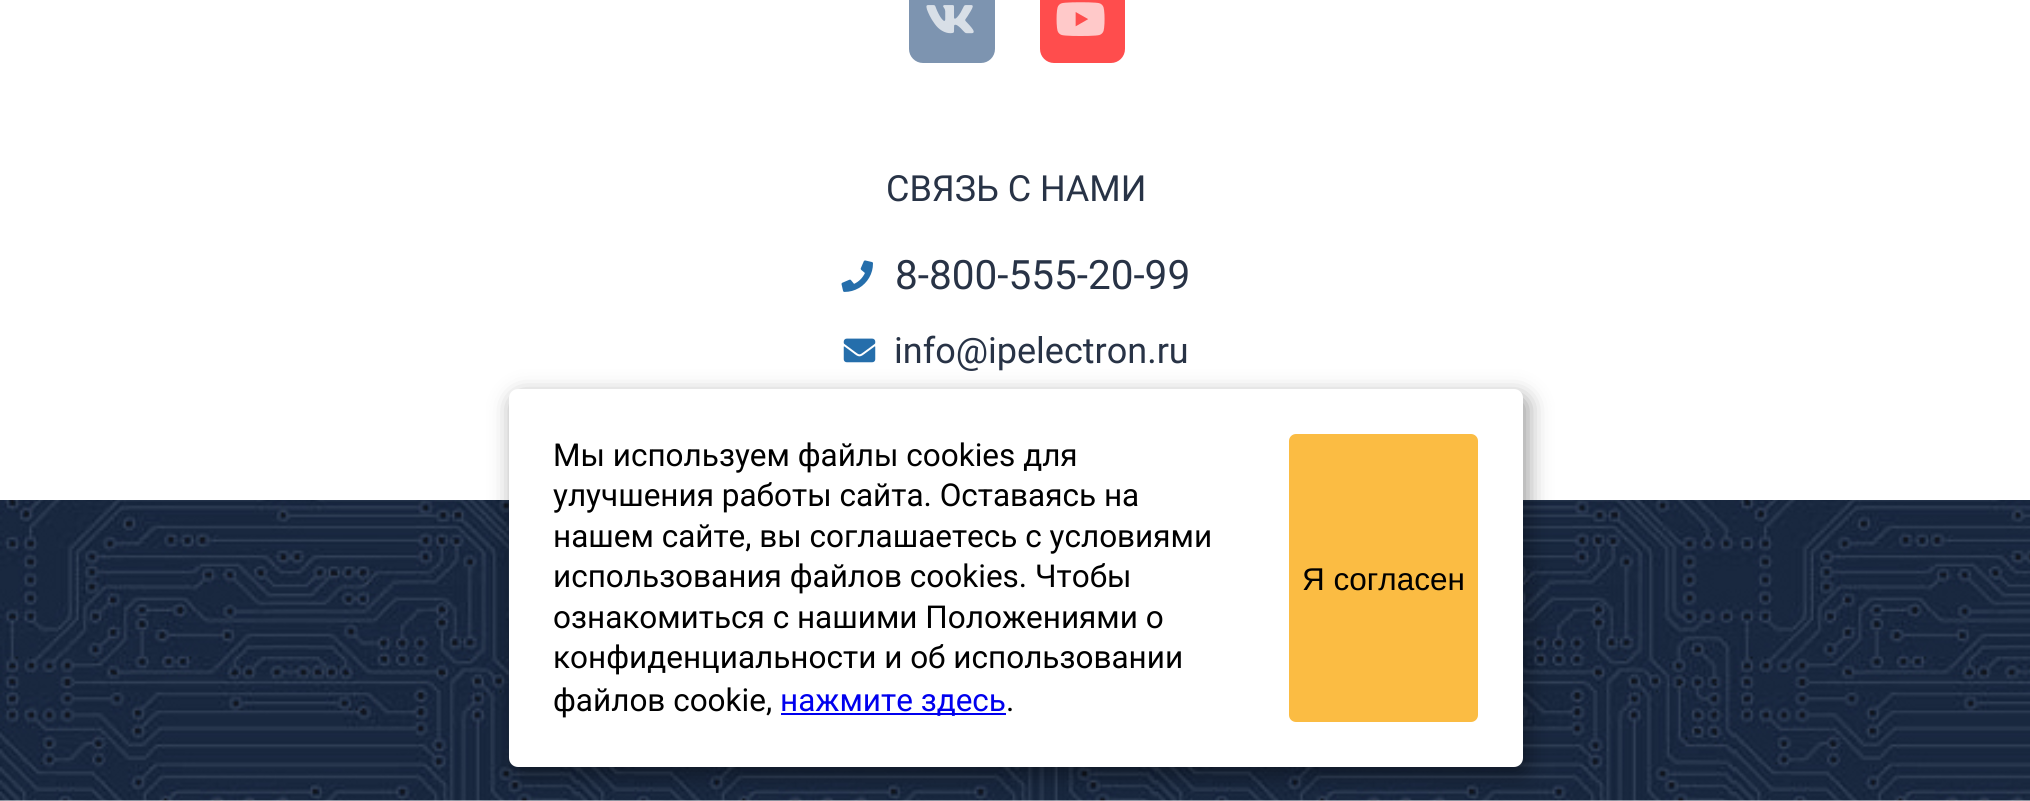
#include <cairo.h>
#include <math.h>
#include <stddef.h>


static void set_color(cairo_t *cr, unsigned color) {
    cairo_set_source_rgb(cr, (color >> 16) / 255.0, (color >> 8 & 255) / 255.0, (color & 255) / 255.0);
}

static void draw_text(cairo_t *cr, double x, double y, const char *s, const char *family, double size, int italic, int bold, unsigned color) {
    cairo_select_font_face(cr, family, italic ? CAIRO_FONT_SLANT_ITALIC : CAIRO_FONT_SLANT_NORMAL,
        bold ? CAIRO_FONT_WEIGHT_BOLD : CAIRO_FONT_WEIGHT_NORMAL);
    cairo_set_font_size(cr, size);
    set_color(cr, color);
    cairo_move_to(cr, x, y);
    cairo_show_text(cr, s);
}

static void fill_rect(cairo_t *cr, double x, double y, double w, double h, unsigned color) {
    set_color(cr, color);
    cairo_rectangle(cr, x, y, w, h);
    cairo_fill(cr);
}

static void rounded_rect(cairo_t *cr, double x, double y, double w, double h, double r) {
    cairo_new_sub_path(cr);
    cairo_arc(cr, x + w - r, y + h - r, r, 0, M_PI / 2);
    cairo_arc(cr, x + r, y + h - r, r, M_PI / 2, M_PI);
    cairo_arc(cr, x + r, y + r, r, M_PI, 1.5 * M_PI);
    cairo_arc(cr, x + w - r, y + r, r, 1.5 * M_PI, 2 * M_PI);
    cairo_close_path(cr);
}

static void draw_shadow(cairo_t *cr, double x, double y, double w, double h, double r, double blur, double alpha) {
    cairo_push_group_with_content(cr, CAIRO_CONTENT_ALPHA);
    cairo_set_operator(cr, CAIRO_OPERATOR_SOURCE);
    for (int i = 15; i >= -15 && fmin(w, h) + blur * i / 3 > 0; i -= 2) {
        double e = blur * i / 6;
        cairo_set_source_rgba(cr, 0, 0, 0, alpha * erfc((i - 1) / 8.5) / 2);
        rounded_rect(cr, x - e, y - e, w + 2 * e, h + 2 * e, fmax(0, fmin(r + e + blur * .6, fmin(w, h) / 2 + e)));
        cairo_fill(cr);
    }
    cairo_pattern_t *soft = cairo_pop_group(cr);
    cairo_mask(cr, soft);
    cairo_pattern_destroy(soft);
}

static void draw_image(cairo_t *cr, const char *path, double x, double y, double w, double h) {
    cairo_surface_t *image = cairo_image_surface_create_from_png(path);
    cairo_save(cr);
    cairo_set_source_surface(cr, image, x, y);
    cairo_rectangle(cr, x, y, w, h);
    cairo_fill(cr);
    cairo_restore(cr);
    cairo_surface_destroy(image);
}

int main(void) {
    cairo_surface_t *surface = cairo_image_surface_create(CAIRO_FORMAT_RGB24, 2030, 801);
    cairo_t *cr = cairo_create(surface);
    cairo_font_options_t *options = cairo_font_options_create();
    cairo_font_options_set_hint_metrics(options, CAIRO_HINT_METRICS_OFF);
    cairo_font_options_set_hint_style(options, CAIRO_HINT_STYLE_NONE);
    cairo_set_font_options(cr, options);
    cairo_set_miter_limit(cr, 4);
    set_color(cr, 0xFFFFFF);
    cairo_paint(cr);
    set_color(cr, 0x7D94B0);
    rounded_rect(cr, 909, -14, 86, 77, 14);
    cairo_fill(cr);
    draw_image(cr, "assets/img1.png", 926, 5, 48, 29);
    set_color(cr, 0xFF4D4D);
    rounded_rect(cr, 1040, -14, 85, 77, 14);
    cairo_fill(cr);
    draw_image(cr, "assets/img2.png", 1056, 2, 49, 34);
    draw_text(cr, 886, 201, "СВЯЗЬ С НАМИ", "Roboto", 36, 0, 0, 0x283346);
    draw_image(cr, "assets/img3.png", 841, 260, 32, 32);
    draw_text(cr, 895, 289, "8-800-555-20-99", "Roboto", 40.5, 0, 0, 0x283346);
    draw_image(cr, "assets/img4.png", 843, 338, 33, 25);
    draw_text(cr, 894, 363, "info@ipelectron.ru", "Roboto", 36, 0, 0, 0x283346);
    draw_image(cr, "assets/img5.png", 0, 500, 2030, 301);
    set_color(cr, 0x000000);
    draw_shadow(cr, 513, 396, 1015, 378, 9, 11, 0.4);
    set_color(cr, 0xFFFFFF);
    rounded_rect(cr, 509, 389, 1014, 378, 9);
    cairo_fill(cr);
    draw_text(cr, 553, 466, "Мы используем файлы cookies для", "Roboto", 31.5, 0, 0, 0x000000);
    draw_text(cr, 553, 506, "улучшения работы сайта. Оставаясь на", "Roboto", 31.5, 0, 0, 0x000000);
    draw_text(cr, 553, 547, "нашем сайте, вы соглашаетесь с условиями", "Roboto", 31.5, 0, 0, 0x000000);
    draw_text(cr, 553, 587, "использования файлов cookies. Чтобы", "Roboto", 31.5, 0, 0, 0x000000);
    draw_text(cr, 553, 628, "ознакомиться с нашими Положениями о", "Roboto", 31.5, 0, 0, 0x000000);
    draw_text(cr, 553, 668, "конфиденциальности и об использовании", "Roboto", 31.5, 0, 0, 0x000000);
    draw_text(cr, 553, 711, "файлов cookie,", "Roboto", 31.5, 0, 0, 0x000000);
    fill_rect(cr, 781, 713, 225, 2, 0x0000EE);
    draw_text(cr, 780, 711, "нажмите здесь", "Roboto", 31.5, 0, 0, 0x0000EE);
    draw_text(cr, 1006, 711, ".", "Roboto", 31.5, 0, 0, 0x000000);
    set_color(cr, 0xFBBC43);
    rounded_rect(cr, 1289, 434, 189, 288, 7);
    cairo_fill(cr);
    draw_text(cr, 1302, 590, "Я согласен", "Liberation Sans", 31.5, 0, 0, 0x000000);
    cairo_surface_write_to_png(surface, "output.png");
    cairo_font_options_destroy(options);
    cairo_destroy(cr);
    cairo_surface_destroy(surface);
    return 0;
}
